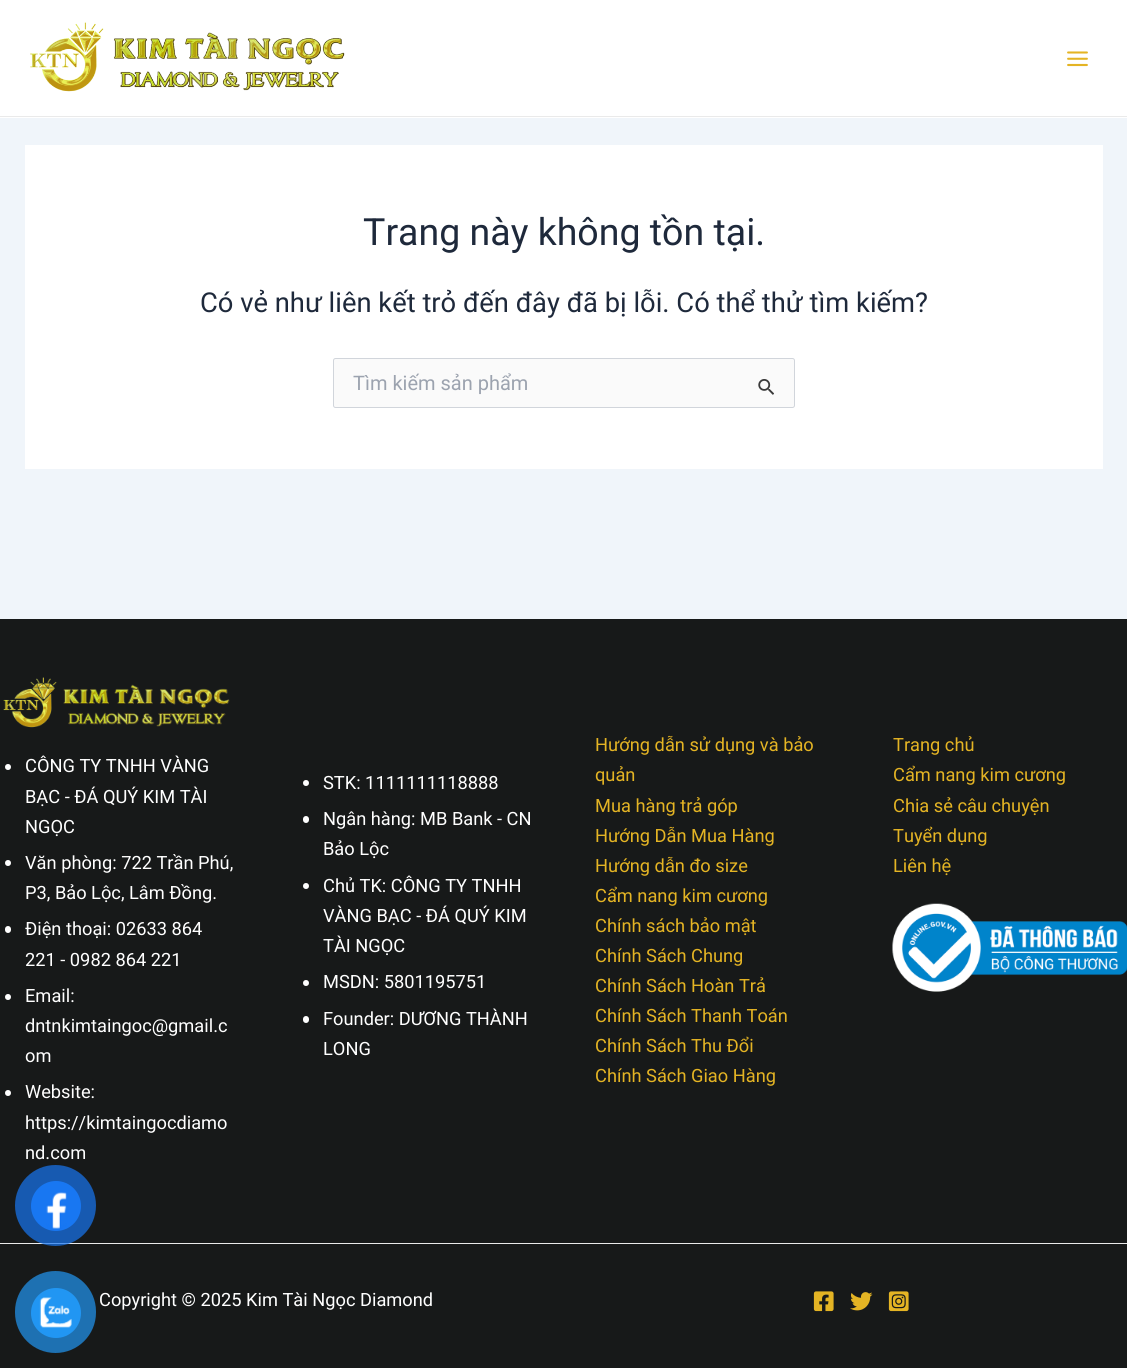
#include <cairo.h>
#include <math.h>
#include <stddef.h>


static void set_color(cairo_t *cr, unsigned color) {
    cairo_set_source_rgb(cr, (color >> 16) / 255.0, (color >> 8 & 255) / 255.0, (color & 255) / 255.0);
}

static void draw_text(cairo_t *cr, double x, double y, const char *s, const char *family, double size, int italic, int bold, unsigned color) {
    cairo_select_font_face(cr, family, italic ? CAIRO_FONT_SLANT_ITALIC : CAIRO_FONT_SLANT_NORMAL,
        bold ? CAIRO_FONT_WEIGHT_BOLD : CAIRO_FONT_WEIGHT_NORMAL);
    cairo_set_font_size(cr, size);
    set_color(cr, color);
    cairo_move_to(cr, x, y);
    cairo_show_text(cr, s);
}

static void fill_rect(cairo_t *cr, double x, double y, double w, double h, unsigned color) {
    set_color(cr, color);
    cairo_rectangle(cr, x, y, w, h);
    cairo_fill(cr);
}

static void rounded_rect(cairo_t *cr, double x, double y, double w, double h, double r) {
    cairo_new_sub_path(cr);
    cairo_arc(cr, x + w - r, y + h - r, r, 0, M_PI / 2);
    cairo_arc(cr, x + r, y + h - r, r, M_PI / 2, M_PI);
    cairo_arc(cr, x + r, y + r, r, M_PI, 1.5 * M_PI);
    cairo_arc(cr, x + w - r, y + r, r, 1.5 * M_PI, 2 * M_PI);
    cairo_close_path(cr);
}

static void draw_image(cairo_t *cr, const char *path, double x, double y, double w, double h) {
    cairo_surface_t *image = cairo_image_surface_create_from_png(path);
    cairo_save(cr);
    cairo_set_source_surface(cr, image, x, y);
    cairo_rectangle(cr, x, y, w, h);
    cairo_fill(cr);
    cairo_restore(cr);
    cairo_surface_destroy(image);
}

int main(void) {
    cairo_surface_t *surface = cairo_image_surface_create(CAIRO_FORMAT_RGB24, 1127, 1368);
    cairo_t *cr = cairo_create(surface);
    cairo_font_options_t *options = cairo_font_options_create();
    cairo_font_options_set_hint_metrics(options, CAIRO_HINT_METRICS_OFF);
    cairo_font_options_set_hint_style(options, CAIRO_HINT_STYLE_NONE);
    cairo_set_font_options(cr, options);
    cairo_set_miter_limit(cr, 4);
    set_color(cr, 0xF0F5FA);
    cairo_paint(cr);
    fill_rect(cr, 0, 0, 1127, 118, 0xFFFFFF);
    fill_rect(cr, 0, 116, 1127, 1, 0xEAEAEA);
    draw_image(cr, "assets/img1.png", 30, 22, 315, 70);
    draw_image(cr, "assets/img2.png", 1067, 51, 21, 16);
    fill_rect(cr, 25, 145, 1078, 324, 0xFFFFFF);
    draw_text(cr, 363, 245, "Trang này không tồn tại.", "Roboto", 37.5, 0, 0, 0x1E293B);
    draw_text(cr, 200, 312, "Có vẻ như liên kết trỏ đến đây đã bị lỗi. Có thể thử tìm kiếm?", "Roboto", 27.35, 0, 0, 0x1E293B);
    set_color(cr, 0xFAFAFA);
    rounded_rect(cr, 333.5, 358.5, 461, 49, 2);
    cairo_fill_preserve(cr);
    set_color(cr, 0xD1D5DB);
    cairo_set_line_width(cr, 1);
    cairo_stroke(cr);
    draw_text(cr, 353, 390, "Tìm kiếm sản phẩm", "Roboto", 20, 0, 0, 0x9CA3AF);
    draw_image(cr, "assets/img3.png", 758, 379, 16, 16);
    fill_rect(cr, 0, 619, 1127, 624, 0x171919);
    draw_image(cr, "assets/img4.png", 3, 677, 227, 51);
    set_color(cr, 0xFFFFFF);
    cairo_arc(cr, 8, 767, 3, 0, 2 * M_PI);
    cairo_fill(cr);
    draw_text(cr, 25, 772, "CÔNG TY TNHH VÀNG", "Roboto", 18.25, 0, 0, 0xFFFFFF);
    draw_text(cr, 25, 803, "BẠC - ĐÁ QUÝ KIM TÀI", "Roboto", 18.25, 0, 0, 0xFFFFFF);
    draw_text(cr, 25, 833, "NGỌC", "Roboto", 18.25, 0, 0, 0xFFFFFF);
    cairo_new_path(cr);
    cairo_arc(cr, 8, 863, 3, 0, 2 * M_PI);
    cairo_fill(cr);
    draw_text(cr, 25, 869, "Văn phòng: 722 Trần Phú,", "Roboto", 18.25, 0, 0, 0xFFFFFF);
    draw_text(cr, 25, 899, "P3, Bảo Lộc, Lâm Đồng.", "Roboto", 18.25, 0, 0, 0xFFFFFF);
    rounded_rect(cr, 5, 926, 6, 7, 3);
    cairo_fill(cr);
    draw_text(cr, 25, 935, "Điện thoại: 02633 864", "Roboto", 18.25, 0, 0, 0xFFFFFF);
    draw_text(cr, 25, 966, "221 - 0982 864 221", "Roboto", 18.25, 0, 0, 0xFFFFFF);
    cairo_new_path(cr);
    cairo_arc(cr, 8, 997, 3, 0, 2 * M_PI);
    cairo_fill(cr);
    draw_text(cr, 25, 1002, "Email:", "Roboto", 18.25, 0, 0, 0xFFFFFF);
    draw_text(cr, 25, 1032, "dntnkimtaingoc@gmail.c", "Roboto", 18.25, 0, 0, 0xFFFFFF);
    draw_text(cr, 25, 1062, "om", "Roboto", 18.25, 0, 0, 0xFFFFFF);
    cairo_new_path(cr);
    cairo_arc(cr, 8, 1093, 3, 0, 2 * M_PI);
    cairo_fill(cr);
    draw_text(cr, 25, 1098, "Website:", "Roboto", 18.25, 0, 0, 0xFFFFFF);
    draw_text(cr, 25, 1129, "https://kimtaingocdiamo", "Roboto", 18.25, 0, 0, 0xFFFFFF);
    draw_text(cr, 25, 1159, "nd.com", "Roboto", 18.25, 0, 0, 0xFFFFFF);
    cairo_new_path(cr);
    cairo_arc(cr, 306, 783, 3, 0, 2 * M_PI);
    cairo_fill(cr);
    draw_text(cr, 323, 789, "STK: 1111111118888", "Roboto", 18.25, 0, 0, 0xFFFFFF);
    rounded_rect(cr, 303, 816, 6, 7, 3);
    cairo_fill(cr);
    draw_text(cr, 323, 825, "Ngân hàng: MB Bank - CN", "Roboto", 18.25, 0, 0, 0xFFFFFF);
    draw_text(cr, 323, 855, "Bảo Lộc", "Roboto", 18.25, 0, 0, 0xFFFFFF);
    cairo_new_path(cr);
    cairo_arc(cr, 306, 886, 3, 0, 2 * M_PI);
    cairo_fill(cr);
    draw_text(cr, 323, 892, "Chủ TK: CÔNG TY TNHH", "Roboto", 18.25, 0, 0, 0xFFFFFF);
    draw_text(cr, 323, 922, "VÀNG BẠC - ĐÁ QUÝ KIM", "Roboto", 18.25, 0, 0, 0xFFFFFF);
    draw_text(cr, 323, 952, "TÀI NGỌC", "Roboto", 18.25, 0, 0, 0xFFFFFF);
    cairo_new_path(cr);
    cairo_arc(cr, 306, 983, 3, 0, 2 * M_PI);
    cairo_fill(cr);
    draw_text(cr, 323, 988, "MSDN: 5801195751", "Roboto", 18.25, 0, 0, 0xFFFFFF);
    rounded_rect(cr, 303, 1016, 6, 7, 3);
    cairo_fill(cr);
    draw_text(cr, 323, 1025, "Founder: DƯƠNG THÀNH", "Roboto", 18.25, 0, 0, 0xFFFFFF);
    draw_text(cr, 323, 1055, "LONG", "Roboto", 18.25, 0, 0, 0xFFFFFF);
    draw_text(cr, 595, 751, "Hướng dẫn sử dụng và bảo", "Roboto", 18.25, 0, 0, 0xE4B424);
    draw_text(cr, 595, 781, "quản", "Roboto", 18.25, 0, 0, 0xE4B424);
    draw_text(cr, 595, 812, "Mua hàng trả góp", "Roboto", 18.25, 0, 0, 0xE4B424);
    draw_text(cr, 595, 842, "Hướng Dẫn Mua Hàng", "Roboto", 18.25, 0, 0, 0xE4B424);
    draw_text(cr, 595, 872, "Hướng dẫn đo size", "Roboto", 18.25, 0, 0, 0xE4B424);
    draw_text(cr, 595, 902, "Cẩm nang kim cương", "Roboto", 18.25, 0, 0, 0xE4B424);
    draw_text(cr, 595, 932, "Chính sách bảo mật", "Roboto", 18.25, 0, 0, 0xE4B424);
    draw_text(cr, 595, 962, "Chính Sách Chung", "Roboto", 18.25, 0, 0, 0xE4B424);
    draw_text(cr, 595, 992, "Chính Sách Hoàn Trả", "Roboto", 18.25, 0, 0, 0xE4B424);
    draw_text(cr, 595, 1022, "Chính Sách Thanh Toán", "Roboto", 18.25, 0, 0, 0xE4B424);
    draw_text(cr, 595, 1052, "Chính Sách Thu Đổi", "Roboto", 18.25, 0, 0, 0xE4B424);
    draw_text(cr, 595, 1082, "Chính Sách Giao Hàng", "Roboto", 18.25, 0, 0, 0xE4B424);
    draw_text(cr, 893, 751, "Trang chủ", "Roboto", 18.25, 0, 0, 0xE4B424);
    draw_text(cr, 893, 781, "Cẩm nang kim cương", "Roboto", 18.25, 0, 0, 0xE4B424);
    draw_text(cr, 893, 812, "Chia sẻ câu chuyện", "Roboto", 18.25, 0, 0, 0xE4B424);
    draw_text(cr, 893, 842, "Tuyển dụng", "Roboto", 18.25, 0, 0, 0xE4B424);
    draw_text(cr, 893, 872, "Liên hệ", "Roboto", 18.25, 0, 0, 0xE4B424);
    draw_image(cr, "assets/img5.png", 892, 903, 235, 89);
    fill_rect(cr, 0, 1244, 1127, 124, 0x171919);
    fill_rect(cr, 0, 1243, 1127, 1, 0xEAEAEA);
    draw_text(cr, 99, 1306, "Copyright © 2025 Kim Tài Ngọc Diamond", "Roboto", 18.25, 0, 0, 0xFFFFFF);
    draw_image(cr, "assets/img6.png", 813, 1291, 21, 21);
    draw_image(cr, "assets/img7.png", 850, 1292, 23, 19);
    draw_image(cr, "assets/img8.png", 888, 1291, 21, 21);
    cairo_set_source_rgba(cr, 0.094, 0.467, 0.949, 0.7);
    cairo_arc(cr, 55.5, 1205.5, 40.5, 0, 2 * M_PI);
    cairo_fill(cr);
    set_color(cr, 0x1877F2);
    cairo_arc(cr, 56, 1206, 25, 0, 2 * M_PI);
    cairo_fill(cr);
    draw_image(cr, "assets/img9.png", 46, 1192, 21, 37);
    set_color(cr, 0x1E71B2);
    rounded_rect(cr, 15, 1271, 81, 82, 40.5);
    cairo_fill(cr);
    set_color(cr, 0x2196F3);
    cairo_arc(cr, 56, 1313, 25, 0, 2 * M_PI);
    cairo_fill(cr);
    draw_image(cr, "assets/img10.png", 39, 1297, 33, 31);
    cairo_surface_write_to_png(surface, "output.png");
    cairo_font_options_destroy(options);
    cairo_destroy(cr);
    cairo_surface_destroy(surface);
    return 0;
}
